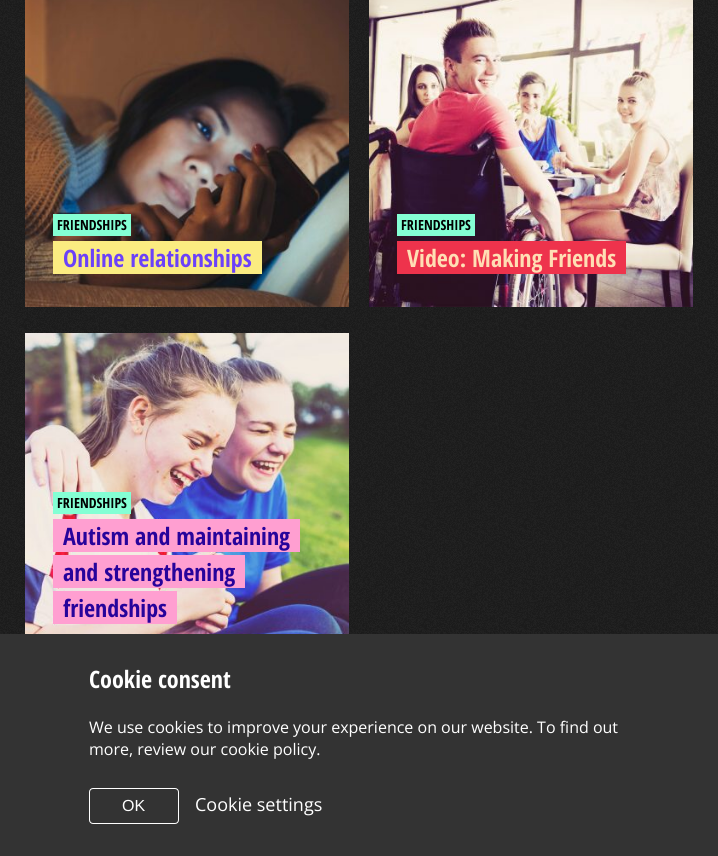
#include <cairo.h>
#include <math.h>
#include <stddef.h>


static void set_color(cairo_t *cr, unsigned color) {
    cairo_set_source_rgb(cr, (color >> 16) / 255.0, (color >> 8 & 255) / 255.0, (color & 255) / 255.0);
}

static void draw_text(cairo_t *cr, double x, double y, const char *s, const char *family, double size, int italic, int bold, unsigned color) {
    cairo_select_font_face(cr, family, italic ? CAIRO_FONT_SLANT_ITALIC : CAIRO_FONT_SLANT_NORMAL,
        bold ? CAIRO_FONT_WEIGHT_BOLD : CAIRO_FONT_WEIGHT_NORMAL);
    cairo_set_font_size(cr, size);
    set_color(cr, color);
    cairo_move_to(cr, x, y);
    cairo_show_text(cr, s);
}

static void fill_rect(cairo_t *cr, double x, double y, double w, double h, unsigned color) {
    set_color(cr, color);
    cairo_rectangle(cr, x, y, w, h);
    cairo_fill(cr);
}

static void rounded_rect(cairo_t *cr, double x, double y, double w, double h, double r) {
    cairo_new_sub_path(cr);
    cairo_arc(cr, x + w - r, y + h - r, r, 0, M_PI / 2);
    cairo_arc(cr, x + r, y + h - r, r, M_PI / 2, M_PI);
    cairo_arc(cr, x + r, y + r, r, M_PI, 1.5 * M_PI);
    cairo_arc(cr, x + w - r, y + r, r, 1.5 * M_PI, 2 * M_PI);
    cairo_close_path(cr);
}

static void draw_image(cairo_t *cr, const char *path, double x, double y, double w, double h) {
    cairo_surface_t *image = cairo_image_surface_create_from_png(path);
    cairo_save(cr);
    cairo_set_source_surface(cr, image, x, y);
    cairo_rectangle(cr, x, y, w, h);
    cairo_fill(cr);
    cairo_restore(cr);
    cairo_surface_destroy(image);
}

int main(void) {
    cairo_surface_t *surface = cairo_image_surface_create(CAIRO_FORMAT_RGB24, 718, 856);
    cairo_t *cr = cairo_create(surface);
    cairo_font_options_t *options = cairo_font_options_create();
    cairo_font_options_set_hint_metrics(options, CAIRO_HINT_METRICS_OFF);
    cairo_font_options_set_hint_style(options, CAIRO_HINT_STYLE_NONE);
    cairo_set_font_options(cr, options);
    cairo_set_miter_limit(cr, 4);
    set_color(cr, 0xFFFFFF);
    cairo_paint(cr);
    draw_image(cr, "assets/img1.png", 0, 0, 718, 634);
    draw_image(cr, "assets/img2.png", 25, 0, 324, 307);
    fill_rect(cr, 53, 214, 78, 22, 0x84FFD4);
    draw_text(cr, 57, 230, "FRIENDSHIPS", "Open Sans Condensed", 14, 0, 1, 0x000000);
    fill_rect(cr, 63, 241, 199, 33, 0xFBEC81);
    draw_text(cr, 63, 267, "Online relationships", "Open Sans Condensed", 24, 0, 1, 0x6B41F9);
    fill_rect(cr, 53, 241, 10, 33, 0xFBEC81);
    draw_image(cr, "assets/img3.png", 369, 0, 324, 307);
    fill_rect(cr, 397, 214, 78, 22, 0x84FFD4);
    draw_text(cr, 401, 230, "FRIENDSHIPS", "Open Sans Condensed", 14, 0, 1, 0x000000);
    fill_rect(cr, 407, 241, 219, 33, 0xEE334C);
    draw_text(cr, 407, 267, "Video: Making Friends", "Open Sans Condensed", 24, 0, 1, 0xFFDEB4);
    fill_rect(cr, 397, 241, 10, 33, 0xEE334C);
    draw_image(cr, "assets/img4.png", 25, 333, 324, 301);
    fill_rect(cr, 53, 492, 78, 22, 0x84FFD4);
    draw_text(cr, 57, 508, "FRIENDSHIPS", "Open Sans Condensed", 14, 0, 1, 0x000000);
    fill_rect(cr, 63, 519, 237, 33, 0xFF9FD1);
    draw_text(cr, 63, 545, "Autism and maintaining", "Open Sans Condensed", 24, 0, 1, 0x27039B);
    fill_rect(cr, 53, 519, 10, 33, 0xFF9FD1);
    fill_rect(cr, 63, 555, 182, 33, 0xFF9FD1);
    draw_text(cr, 63, 581, "and strengthening", "Open Sans Condensed", 24, 0, 1, 0x27039B);
    fill_rect(cr, 53, 555, 10, 33, 0xFF9FD1);
    fill_rect(cr, 63, 591, 114, 33, 0xFF9FD1);
    draw_text(cr, 63, 617, "friendships", "Open Sans Condensed", 24, 0, 1, 0x27039B);
    fill_rect(cr, 53, 591, 10, 33, 0xFF9FD1);
    fill_rect(cr, 0, 634, 718, 222, 0x333333);
    draw_text(cr, 89, 688, "Cookie consent", "Open Sans Condensed", 24, 0, 1, 0xFFFFFF);
    draw_text(cr, 89, 733, "We use cookies to improve your experience on our website. To find out", "Open Sans", 16, 0, 0, 0xFFFFFF);
    draw_text(cr, 89, 755, "more, review our cookie policy.", "Open Sans", 16, 0, 0, 0xFFFFFF);
    rounded_rect(cr, 89.5, 788.5, 89, 35, 3.5);
    cairo_set_line_width(cr, 1);
    cairo_stroke(cr);
    draw_text(cr, 122, 811, "OK", "Liberation Sans", 16, 0, 0, 0xFFFFFF);
    draw_text(cr, 195, 811, "Cookie settings", "Open Sans", 18, 0, 0, 0xFFFFFF);
    cairo_surface_write_to_png(surface, "output.png");
    cairo_font_options_destroy(options);
    cairo_destroy(cr);
    cairo_surface_destroy(surface);
    return 0;
}
